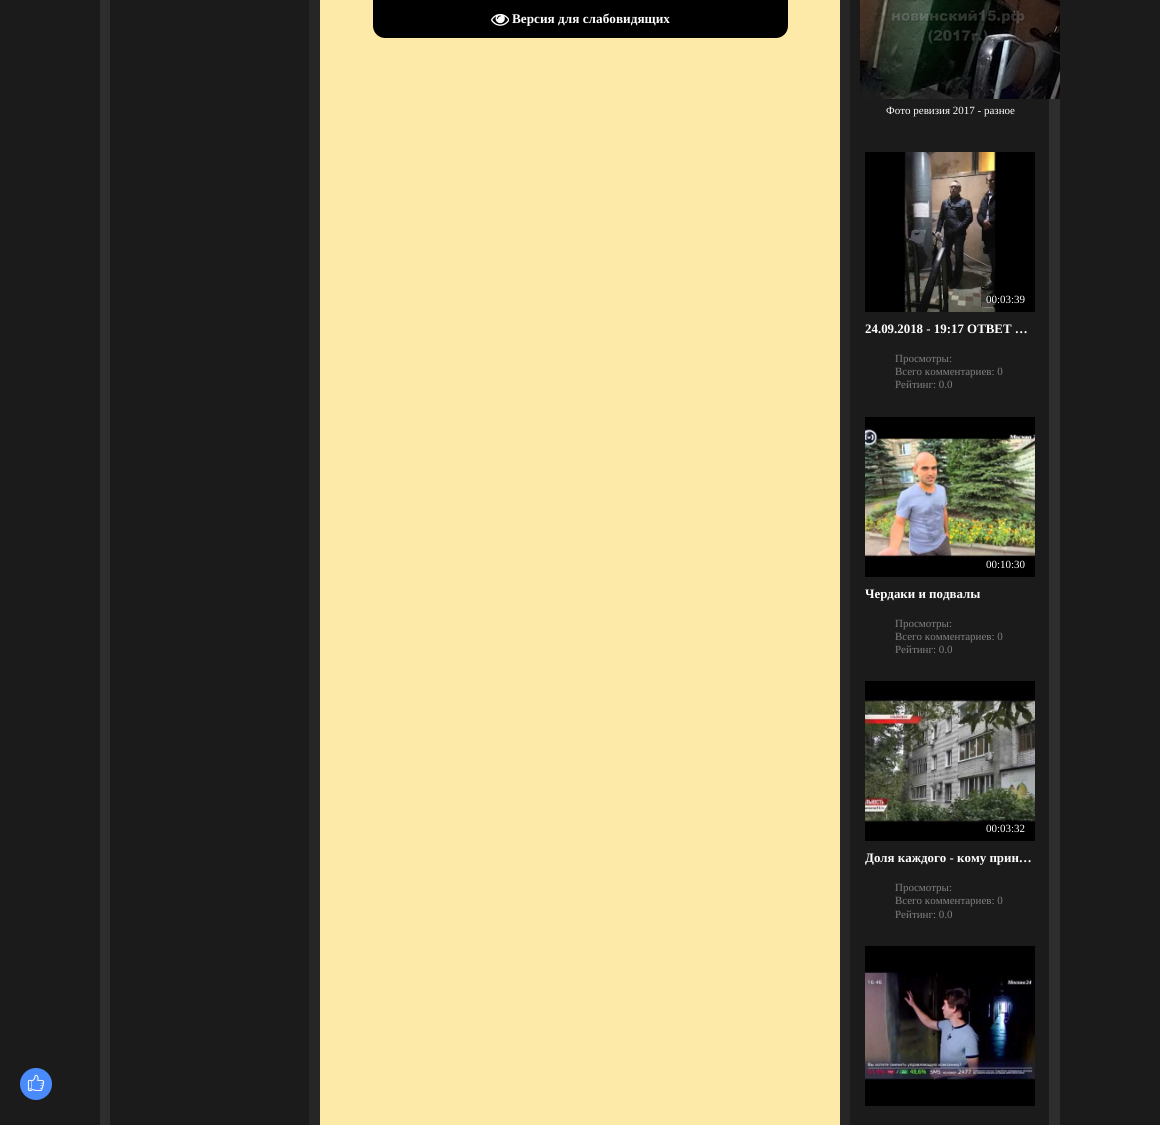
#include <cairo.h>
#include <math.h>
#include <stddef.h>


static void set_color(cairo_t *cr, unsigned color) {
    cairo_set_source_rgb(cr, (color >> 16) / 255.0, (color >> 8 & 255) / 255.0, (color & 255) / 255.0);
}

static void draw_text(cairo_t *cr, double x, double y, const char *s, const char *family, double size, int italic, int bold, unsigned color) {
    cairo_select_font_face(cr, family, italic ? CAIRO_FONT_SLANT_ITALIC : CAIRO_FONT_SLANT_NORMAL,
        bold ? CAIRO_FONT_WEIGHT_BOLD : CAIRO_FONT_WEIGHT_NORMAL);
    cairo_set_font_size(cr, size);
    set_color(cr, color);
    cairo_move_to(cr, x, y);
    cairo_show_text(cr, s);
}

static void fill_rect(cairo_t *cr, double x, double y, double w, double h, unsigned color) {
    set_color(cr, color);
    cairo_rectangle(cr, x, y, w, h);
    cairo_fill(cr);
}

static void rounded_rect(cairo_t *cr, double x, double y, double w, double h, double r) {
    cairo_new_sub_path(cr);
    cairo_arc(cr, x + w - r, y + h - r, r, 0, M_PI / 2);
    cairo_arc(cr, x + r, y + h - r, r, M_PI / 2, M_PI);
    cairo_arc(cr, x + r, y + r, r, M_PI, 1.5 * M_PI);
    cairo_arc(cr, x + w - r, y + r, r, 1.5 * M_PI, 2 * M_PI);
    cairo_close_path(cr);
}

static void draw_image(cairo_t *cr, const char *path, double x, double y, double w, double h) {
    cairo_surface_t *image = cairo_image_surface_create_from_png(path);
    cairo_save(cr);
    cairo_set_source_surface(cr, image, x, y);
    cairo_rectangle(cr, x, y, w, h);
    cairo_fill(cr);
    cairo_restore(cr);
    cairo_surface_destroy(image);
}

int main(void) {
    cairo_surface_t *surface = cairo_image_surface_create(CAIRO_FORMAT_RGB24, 1160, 1125);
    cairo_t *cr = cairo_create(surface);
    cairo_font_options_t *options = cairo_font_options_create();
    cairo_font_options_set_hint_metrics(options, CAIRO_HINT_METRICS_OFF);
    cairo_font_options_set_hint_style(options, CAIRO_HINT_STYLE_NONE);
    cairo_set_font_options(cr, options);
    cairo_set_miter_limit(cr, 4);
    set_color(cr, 0x1B1B1B);
    cairo_paint(cr);
    draw_image(cr, "assets/img2.png", 100, 0, 960, 1125);
    fill_rect(cr, 320, 0, 520, 1125, 0xFDEAA8);
    set_color(cr, 0x000000);
    cairo_new_path(cr);
    cairo_move_to(cr, 373, 0);
    cairo_line_to(cr, 788, 0);
    cairo_line_to(cr, 788, 26);
    cairo_curve_to(cr, 788, 32.5, 782.5, 38, 776, 38);
    cairo_line_to(cr, 385, 38);
    cairo_curve_to(cr, 378.5, 38, 373, 32.5, 373, 26);
    cairo_close_path(cr);
    cairo_fill(cr);
    draw_image(cr, "assets/img1.png", 491, 13, 18, 13);
    draw_text(cr, 512, 23, "Версия для слабовидящих", "Liberation Serif", 13.25, 0, 1, 0xFFFFFF);
    fill_rect(cr, 110, 0, 199, 1125, 0x1B1B1B);
    fill_rect(cr, 850, 0, 199, 1125, 0x1B1B1B);
    draw_image(cr, "assets/img3.png", 860, 0, 200, 99);
    draw_text(cr, 886, 114, "Фото ревизия 2017 - разное", "Liberation Serif", 11, 0, 0, 0xFFFFFF);
    draw_image(cr, "assets/img4.png", 865, 152, 170, 160);
    cairo_set_source_rgba(cr, 0, 0, 0, 0.5);
    rounded_rect(cr, 981, 291, 49, 16, 2);
    cairo_fill(cr);
    draw_text(cr, 986, 303, "00:03:39", "Liberation Serif", 11, 0, 0, 0xFFFFFF);
    draw_text(cr, 865, 333, "24.09.2018 - 19:17 ОТВЕТ …", "Liberation Serif", 12.9, 0, 1, 0xFFFFFF);
    draw_text(cr, 895, 362, "Просмотры:", "Liberation Serif", 11, 0, 0, 0x808080);
    draw_text(cr, 895, 375, "Всего комментариев: 0", "Liberation Serif", 11, 0, 0, 0x808080);
    draw_text(cr, 895, 388, "Рейтинг: 0.0", "Liberation Serif", 11, 0, 0, 0x808080);
    draw_image(cr, "assets/img5.png", 865, 417, 170, 160);
    cairo_set_source_rgba(cr, 0, 0, 0, 0.5);
    rounded_rect(cr, 981, 556, 49, 16, 2);
    cairo_fill(cr);
    draw_text(cr, 986, 568, "00:10:30", "Liberation Serif", 11, 0, 0, 0xFFFFFF);
    draw_text(cr, 865, 598, "Чердаки и подвалы", "Liberation Serif", 12.9, 0, 1, 0xFFFFFF);
    draw_text(cr, 895, 627, "Просмотры:", "Liberation Serif", 11, 0, 0, 0x808080);
    draw_text(cr, 895, 640, "Всего комментариев: 0", "Liberation Serif", 11, 0, 0, 0x808080);
    draw_text(cr, 895, 653, "Рейтинг: 0.0", "Liberation Serif", 11, 0, 0, 0x808080);
    draw_image(cr, "assets/img6.png", 865, 681, 170, 160);
    cairo_set_source_rgba(cr, 0, 0, 0, 0.5);
    rounded_rect(cr, 981, 820, 49, 16, 2);
    cairo_fill(cr);
    draw_text(cr, 986, 832, "00:03:32", "Liberation Serif", 11, 0, 0, 0xFFFFFF);
    draw_text(cr, 865, 862, "Доля каждого - кому прин…", "Liberation Serif", 12.9, 0, 1, 0xFFFFFF);
    draw_text(cr, 895, 891, "Просмотры:", "Liberation Serif", 11, 0, 0, 0x808080);
    draw_text(cr, 895, 904, "Всего комментариев: 0", "Liberation Serif", 11, 0, 0, 0x808080);
    draw_text(cr, 895, 918, "Рейтинг: 0.0", "Liberation Serif", 11, 0, 0, 0x808080);
    draw_image(cr, "assets/img7.png", 865, 946, 170, 160);
    set_color(cr, 0x498BFA);
    cairo_arc(cr, 36, 1084, 16, 0, 2 * M_PI);
    cairo_fill(cr);
    draw_image(cr, "assets/img8.png", 27, 1074, 18, 17);
    cairo_surface_write_to_png(surface, "output.png");
    cairo_font_options_destroy(options);
    cairo_destroy(cr);
    cairo_surface_destroy(surface);
    return 0;
}
